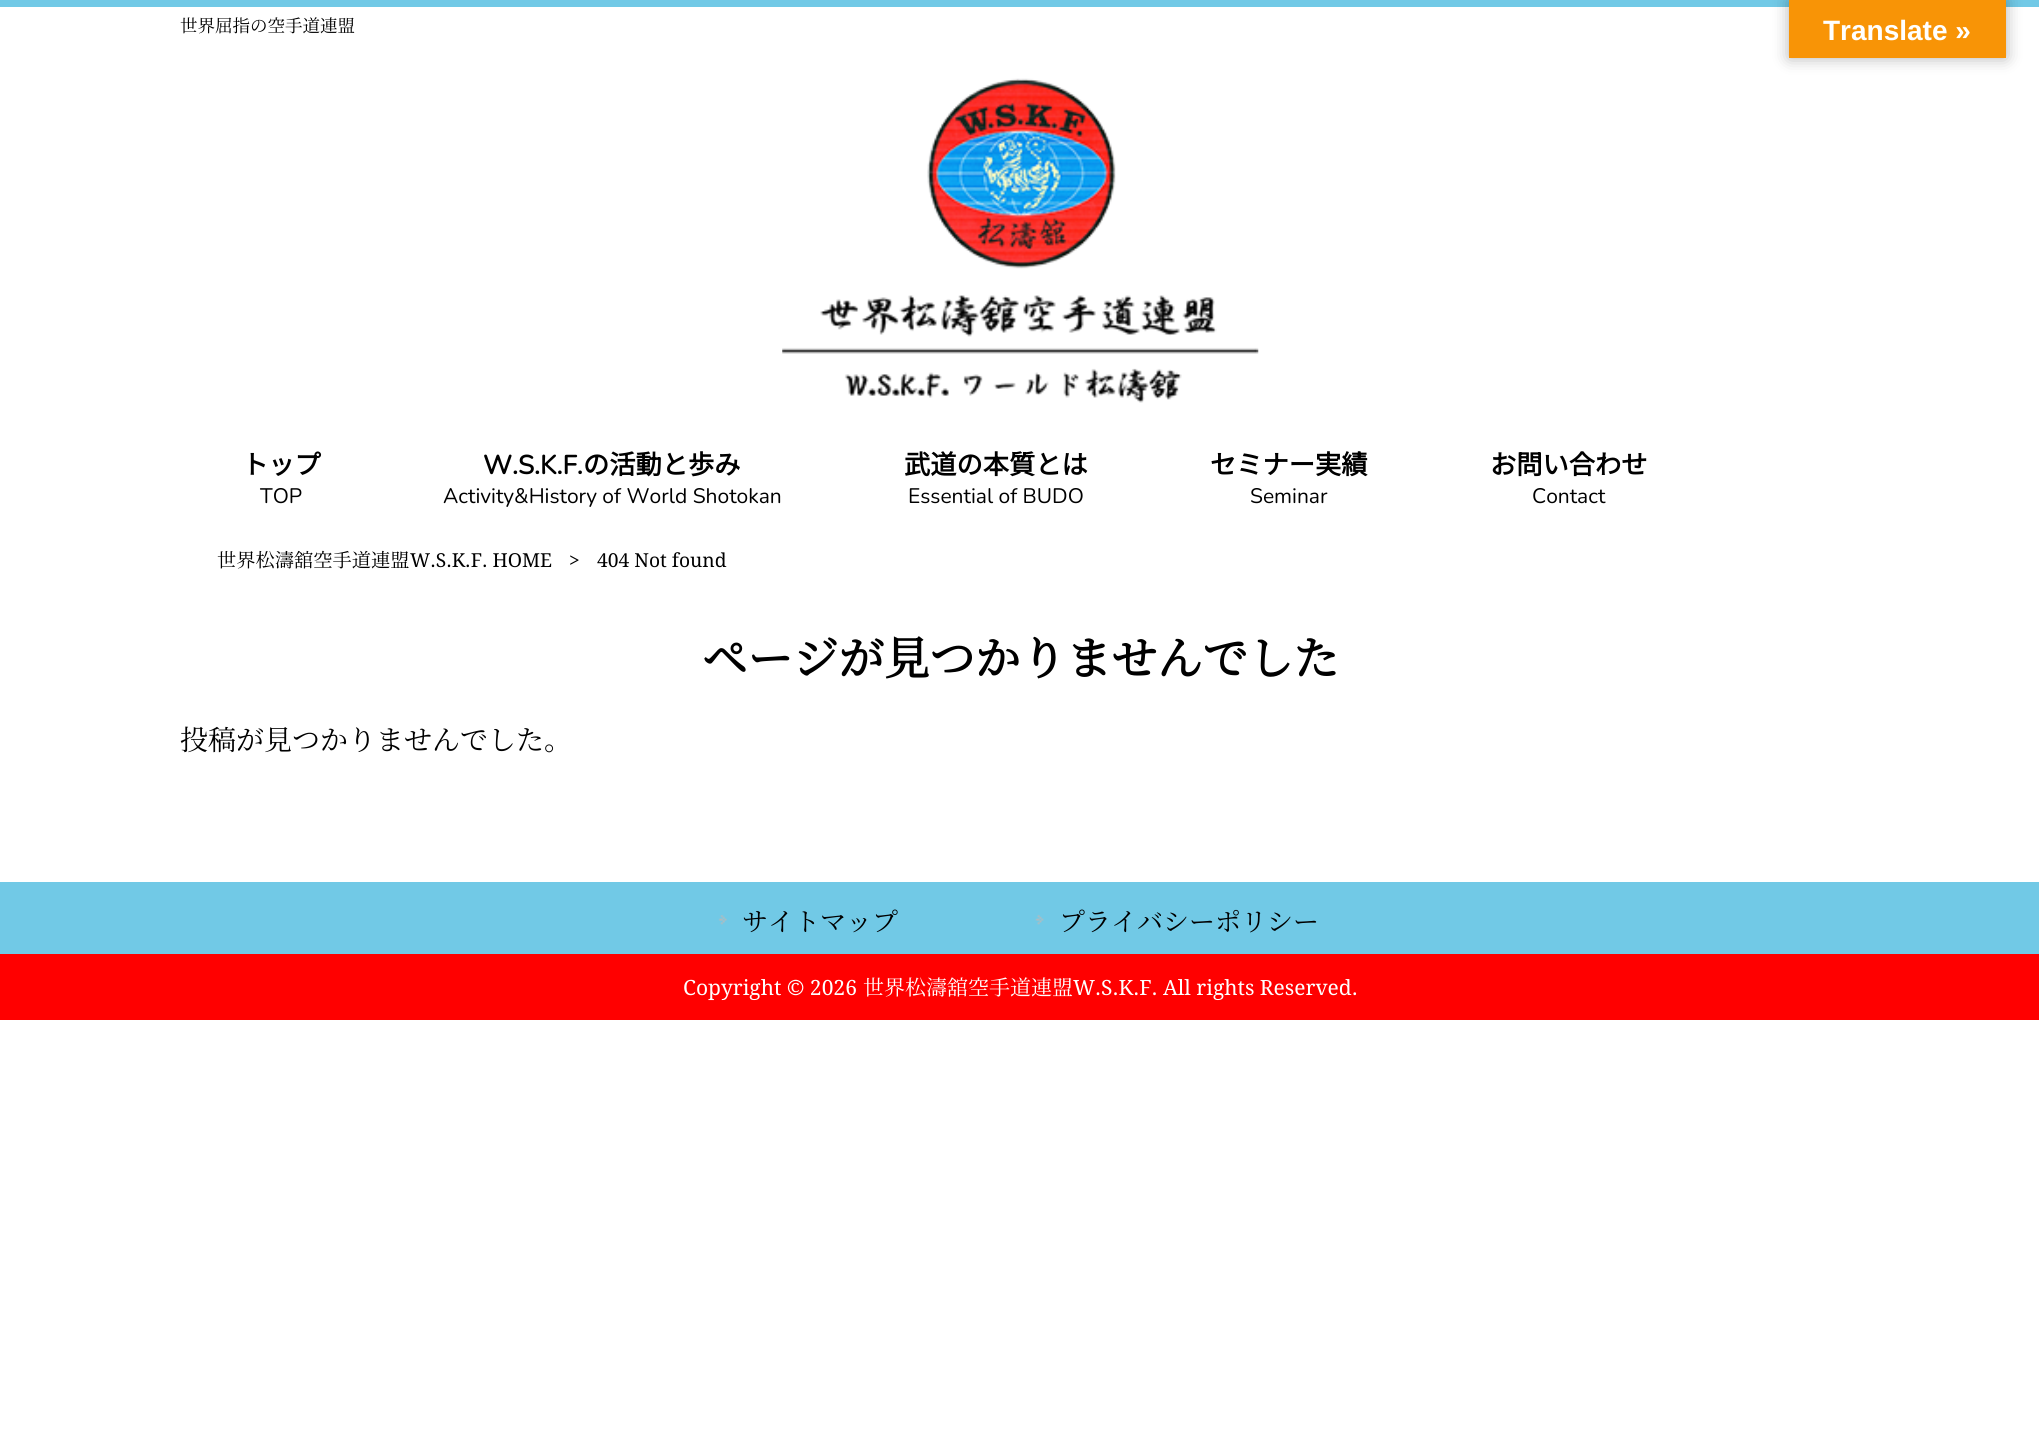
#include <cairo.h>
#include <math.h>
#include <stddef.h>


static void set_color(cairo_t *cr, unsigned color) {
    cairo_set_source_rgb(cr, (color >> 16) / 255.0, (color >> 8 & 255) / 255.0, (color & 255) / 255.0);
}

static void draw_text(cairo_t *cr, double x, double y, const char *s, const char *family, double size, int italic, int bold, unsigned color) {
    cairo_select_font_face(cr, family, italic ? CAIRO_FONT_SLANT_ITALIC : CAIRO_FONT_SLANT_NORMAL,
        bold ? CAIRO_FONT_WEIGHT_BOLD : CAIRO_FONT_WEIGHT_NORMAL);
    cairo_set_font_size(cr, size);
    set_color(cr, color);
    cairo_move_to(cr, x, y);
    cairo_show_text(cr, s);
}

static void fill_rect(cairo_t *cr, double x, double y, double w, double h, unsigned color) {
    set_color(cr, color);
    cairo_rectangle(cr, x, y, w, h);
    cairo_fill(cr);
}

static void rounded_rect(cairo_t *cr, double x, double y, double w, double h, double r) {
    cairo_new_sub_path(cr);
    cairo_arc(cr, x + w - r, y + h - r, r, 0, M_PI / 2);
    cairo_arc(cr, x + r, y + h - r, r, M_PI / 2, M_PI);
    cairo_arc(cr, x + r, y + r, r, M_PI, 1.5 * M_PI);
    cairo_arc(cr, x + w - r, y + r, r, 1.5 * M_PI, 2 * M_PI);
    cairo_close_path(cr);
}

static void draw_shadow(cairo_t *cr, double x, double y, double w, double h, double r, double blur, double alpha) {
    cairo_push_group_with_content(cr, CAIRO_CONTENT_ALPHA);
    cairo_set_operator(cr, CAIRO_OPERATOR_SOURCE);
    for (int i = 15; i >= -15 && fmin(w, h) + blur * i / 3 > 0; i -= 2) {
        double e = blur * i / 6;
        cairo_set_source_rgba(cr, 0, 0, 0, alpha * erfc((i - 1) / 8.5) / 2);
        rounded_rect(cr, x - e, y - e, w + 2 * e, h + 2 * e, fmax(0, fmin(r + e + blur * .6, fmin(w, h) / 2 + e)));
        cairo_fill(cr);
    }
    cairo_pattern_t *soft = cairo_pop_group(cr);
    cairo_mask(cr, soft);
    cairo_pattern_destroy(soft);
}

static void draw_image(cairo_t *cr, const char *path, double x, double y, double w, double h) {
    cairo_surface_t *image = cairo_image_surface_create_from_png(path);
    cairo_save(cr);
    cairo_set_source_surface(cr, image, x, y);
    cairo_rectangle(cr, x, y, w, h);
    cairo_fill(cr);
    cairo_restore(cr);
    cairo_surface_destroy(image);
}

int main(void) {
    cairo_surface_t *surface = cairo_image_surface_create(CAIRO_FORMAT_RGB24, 2039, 1435);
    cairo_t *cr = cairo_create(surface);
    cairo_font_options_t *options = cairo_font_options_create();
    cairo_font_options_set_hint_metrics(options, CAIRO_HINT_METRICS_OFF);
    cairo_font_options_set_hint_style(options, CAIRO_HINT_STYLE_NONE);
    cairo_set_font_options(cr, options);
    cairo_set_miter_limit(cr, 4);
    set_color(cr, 0xFFFFFF);
    cairo_paint(cr);
    fill_rect(cr, 0, 0, 2039, 7, 0x71C9E6);
    draw_text(cr, 180, 32, "世界屈指の空手道連盟", "Noto Serif JP ExtraLight", 17.5, 0, 0, 0x000000);
    draw_image(cr, "assets/img1.png", 782, 78, 477, 325);
    set_color(cr, 0x000000);
    draw_shadow(cr, 1789, 0, 217, 58, 0, 8, 0.3);
    fill_rect(cr, 1789, 0, 217, 58, 0xF89406);
    draw_text(cr, 1823, 40, "Translate »", "Liberation Sans", 28, 0, 1, 0xFFFFFF);
    draw_text(cr, 242, 474, "トップ", "Noto Sans JP", 26.25, 0, 1, 0x000000);
    draw_text(cr, 260, 503, "TOP", "Nunito ExtraLight", 21, 0, 0, 0x000000);
    draw_text(cr, 483, 474, "W.S.K.F.", "Nunito", 26.25, 0, 1, 0x000000);
    draw_text(cr, 583, 474, "の活動と歩み", "Noto Sans JP", 26.25, 0, 1, 0x000000);
    draw_text(cr, 443, 503, "Activity&History of World Shotokan", "Nunito ExtraLight", 21, 0, 0, 0x000000);
    draw_text(cr, 904, 474, "武道の本質とは", "Noto Sans JP", 26.25, 0, 1, 0x000000);
    draw_text(cr, 908, 503, "Essential of BUDO", "Nunito ExtraLight", 21, 0, 0, 0x000000);
    draw_text(cr, 1210, 474, "セミナー実績", "Noto Sans JP", 26.25, 0, 1, 0x000000);
    draw_text(cr, 1250, 503, "Seminar", "Nunito ExtraLight", 21, 0, 0, 0x000000);
    draw_text(cr, 1490, 474, "お問い合わせ", "Noto Sans JP", 26.25, 0, 1, 0x000000);
    draw_text(cr, 1532, 503, "Contact", "Nunito ExtraLight", 21, 0, 0, 0x000000);
    draw_text(cr, 217, 567, "世界松濤舘空手道連盟", "Noto Serif JP ExtraLight", 19.25, 0, 0, 0x000000);
    draw_text(cr, 410, 567, "W.S.K.F. HOME", "Droid Serif", 19.25, 0, 0, 0x000000);
    draw_text(cr, 569, 567, ">", "Droid Serif", 19.25, 0, 0, 0x000000);
    draw_text(cr, 597, 567, "404 Not found", "Droid Serif", 19.25, 0, 0, 0x000000);
    draw_text(cr, 702, 675, "ページが見つかりませんでした", "Noto Serif JP", 45.5, 0, 1, 0x000000);
    draw_text(cr, 180, 750, "投稿が見つかりませんでした。", "Noto Serif JP ExtraLight", 28, 0, 0, 0x000000);
    fill_rect(cr, 0, 882, 2039, 72, 0x71C9E6);
    draw_image(cr, "assets/img2.png", 718, 915, 9, 10);
    draw_text(cr, 742, 931, "サイトマップ", "Noto Serif JP ExtraLight", 26, 0, 0, 0x000000);
    draw_image(cr, "assets/img3.png", 1035, 914, 9, 11);
    draw_text(cr, 1059, 931, "プライバシーポリシー", "Noto Serif JP ExtraLight", 26, 0, 0, 0x000000);
    fill_rect(cr, 0, 954, 2039, 66, 0xFF0000);
    draw_text(cr, 683, 995, "Copyright © 2026", "Droid Serif", 21, 0, 0, 0xFFFFFF);
    draw_text(cr, 863, 995, "世界松濤舘空手道連盟", "Noto Serif JP ExtraLight", 21, 0, 0, 0xFFFFFF);
    draw_text(cr, 1073, 995, "W.S.K.F. All rights Reserved.", "Droid Serif", 21, 0, 0, 0xFFFFFF);
    cairo_surface_write_to_png(surface, "output.png");
    cairo_font_options_destroy(options);
    cairo_destroy(cr);
    cairo_surface_destroy(surface);
    return 0;
}
